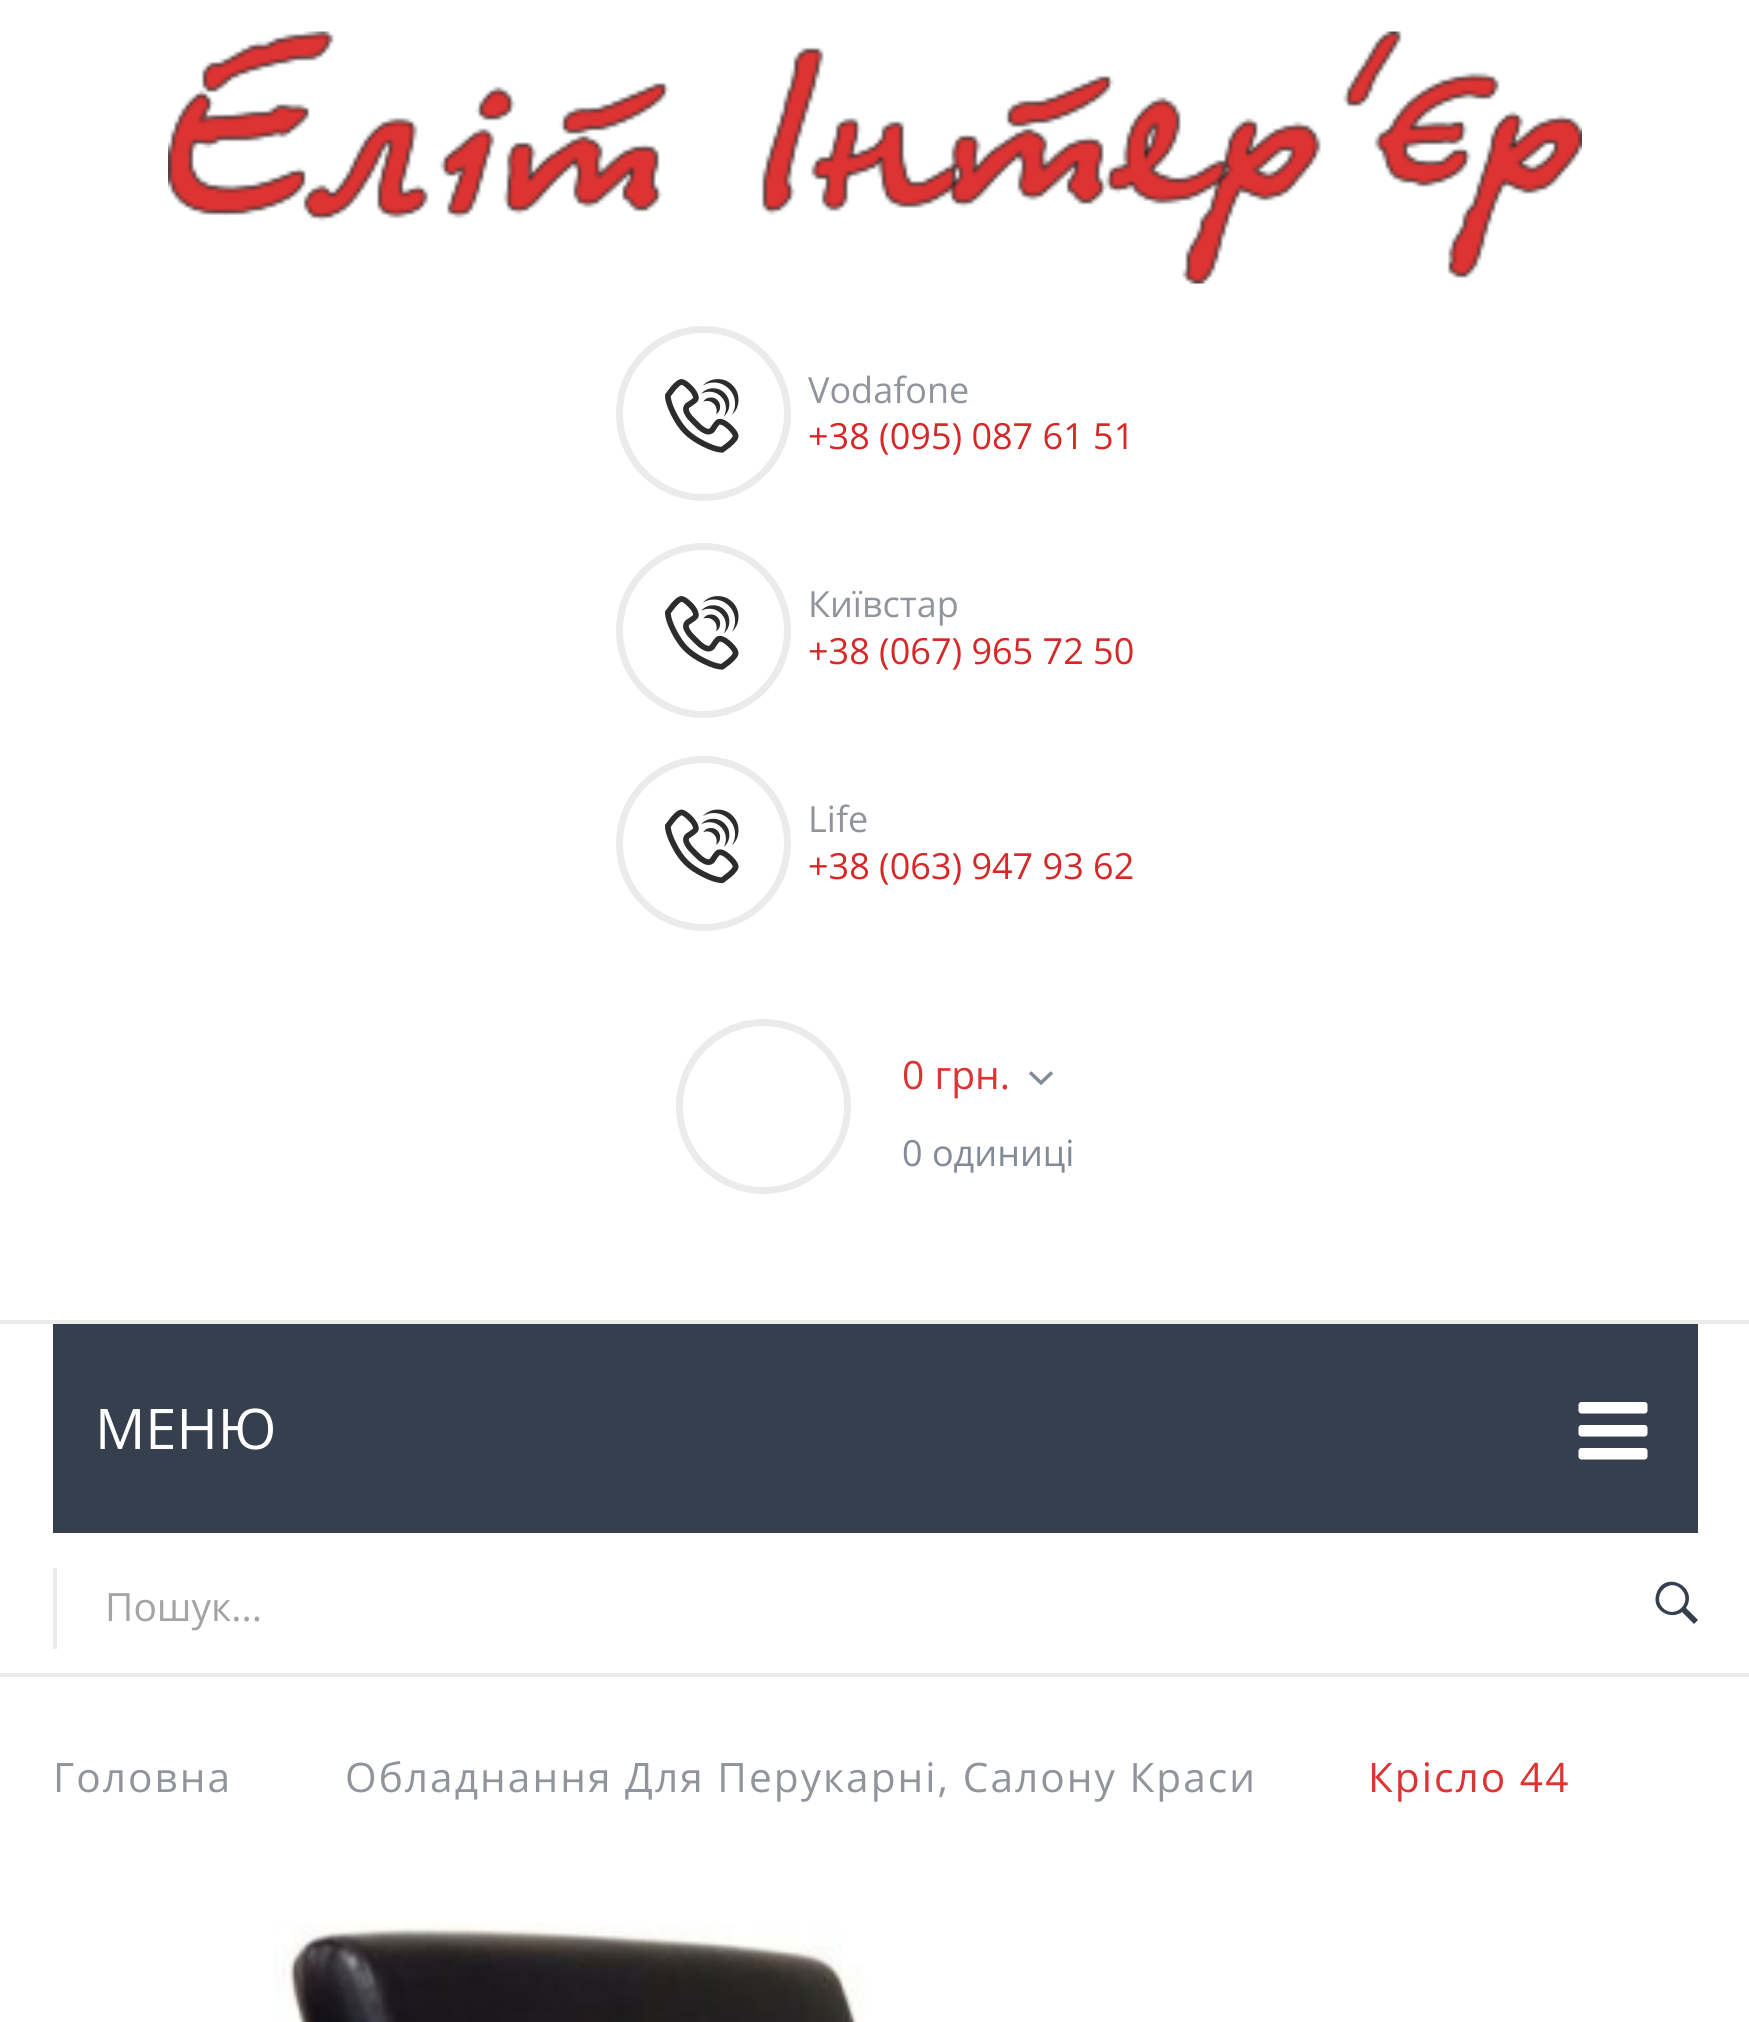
#include <cairo.h>
#include <math.h>
#include <stddef.h>


static void set_color(cairo_t *cr, unsigned color) {
    cairo_set_source_rgb(cr, (color >> 16) / 255.0, (color >> 8 & 255) / 255.0, (color & 255) / 255.0);
}

static void draw_text(cairo_t *cr, double x, double y, const char *s, const char *family, double size, int italic, int bold, unsigned color) {
    cairo_select_font_face(cr, family, italic ? CAIRO_FONT_SLANT_ITALIC : CAIRO_FONT_SLANT_NORMAL,
        bold ? CAIRO_FONT_WEIGHT_BOLD : CAIRO_FONT_WEIGHT_NORMAL);
    cairo_set_font_size(cr, size);
    set_color(cr, color);
    cairo_move_to(cr, x, y);
    cairo_show_text(cr, s);
}

static void draw_spaced(cairo_t *cr, double x, double y, const char *s, double letter, double word) {
    cairo_move_to(cr, x, y);
    while (*s) {
        char ch[5] = {0};
        int n = 0;
        do ch[n++] = *s++; while ((*s & 0xC0) == 0x80);
        cairo_show_text(cr, ch);
        cairo_rel_move_to(cr, letter + word * (*ch == ' '), 0);
    }
}

static void fill_rect(cairo_t *cr, double x, double y, double w, double h, unsigned color) {
    set_color(cr, color);
    cairo_rectangle(cr, x, y, w, h);
    cairo_fill(cr);
}

static void draw_image(cairo_t *cr, const char *path, double x, double y, double w, double h) {
    cairo_surface_t *image = cairo_image_surface_create_from_png(path);
    cairo_save(cr);
    cairo_set_source_surface(cr, image, x, y);
    cairo_rectangle(cr, x, y, w, h);
    cairo_fill(cr);
    cairo_restore(cr);
    cairo_surface_destroy(image);
}

int main(void) {
    cairo_surface_t *surface = cairo_image_surface_create(CAIRO_FORMAT_RGB24, 1749, 2022);
    cairo_t *cr = cairo_create(surface);
    cairo_font_options_t *options = cairo_font_options_create();
    cairo_font_options_set_hint_metrics(options, CAIRO_HINT_METRICS_OFF);
    cairo_font_options_set_hint_style(options, CAIRO_HINT_STYLE_NONE);
    cairo_set_font_options(cr, options);
    cairo_set_miter_limit(cr, 4);
    set_color(cr, 0xFFFFFF);
    cairo_paint(cr);
    fill_rect(cr, 0, 1673, 1749, 4, 0xEBEBEB);
    fill_rect(cr, 0, 1320, 1749, 4, 0xEBEBEB);
    draw_image(cr, "assets/img1.png", 168, 31, 1414, 253);
    cairo_arc(cr, 703.5, 413.5, 84, 0, 2 * M_PI);
    cairo_set_line_width(cr, 7);
    cairo_stroke(cr);
    draw_image(cr, "assets/img2.png", 665, 379, 74, 74);
    draw_text(cr, 808, 403, "Vodafone", "Open Sans", 36, 0, 0, 0x91959B);
    draw_text(cr, 808, 449, "+38 (095) 087 61 51", "Open Sans", 36, 0, 0, 0xD72828);
    cairo_new_path(cr);
    cairo_arc(cr, 703.5, 630.5, 84, 0, 2 * M_PI);
    set_color(cr, 0xEBEBEB);
    cairo_stroke(cr);
    draw_image(cr, "assets/img2.png", 665, 596, 74, 74);
    draw_text(cr, 808, 617, "Київстар", "Open Sans", 36, 0, 0, 0x91959B);
    draw_text(cr, 808, 664, "+38 (067) 965 72 50", "Open Sans", 36, 0, 0, 0xD72828);
    cairo_new_path(cr);
    cairo_arc(cr, 703.5, 843.5, 84, 0, 2 * M_PI);
    set_color(cr, 0xEBEBEB);
    cairo_stroke(cr);
    draw_image(cr, "assets/img3.png", 665, 809, 74, 75);
    draw_text(cr, 808, 832, "Life", "Open Sans", 36, 0, 0, 0x91959B);
    draw_text(cr, 808, 879, "+38 (063) 947 93 62", "Open Sans", 36, 0, 0, 0xD72828);
    cairo_new_path(cr);
    cairo_arc(cr, 763.5, 1106.5, 84, 0, 2 * M_PI);
    set_color(cr, 0xEBEBEB);
    cairo_stroke(cr);
    draw_text(cr, 902, 1089, "0 грн.", "Open Sans", 39, 0, 0, 0xDD3333);
    draw_image(cr, "assets/img4.png", 1029, 1071, 24, 14);
    draw_text(cr, 902, 1166, "0 одиниці", "Open Sans", 36, 0, 0, 0x838B98);
    fill_rect(cr, 53, 1324, 1645, 209, 0x363F4D);
    draw_text(cr, 95, 1449, "МЕНЮ", "Open Sans", 56, 0, 0, 0xFFFFFF);
    draw_image(cr, "assets/img5.png", 1578, 1402, 70, 58);
    fill_rect(cr, 53, 1568, 4, 81, 0xEBEBEB);
    draw_text(cr, 105, 1621, "Пошук...", "Open Sans", 39, 0, 0, 0xA4A4A4);
    set_color(cr, 0x363F4D);
    cairo_new_path(cr);
    cairo_move_to(cr, 1686, 1608);
    cairo_line_to(cr, 1698, 1620);
    cairo_line_to(cr, 1694, 1624);
    cairo_line_to(cr, 1682, 1612);
    cairo_curve_to(cr, 1674, 1618, 1662, 1615, 1657, 1606);
    cairo_curve_to(cr, 1655, 1602, 1655, 1597, 1657, 1592);
    cairo_curve_to(cr, 1666, 1570, 1699, 1587, 1686, 1608);
    cairo_close_path(cr);
    cairo_move_to(cr, 1681, 1589);
    cairo_curve_to(cr, 1669, 1577, 1651, 1596, 1663, 1608);
    cairo_curve_to(cr, 1675, 1620, 1694, 1602, 1681, 1589);
    cairo_close_path(cr);
    cairo_fill(cr);
    cairo_set_font_size(cr, 40.6);
    set_color(cr, 0x91959B);
    draw_spaced(cr, 53, 1792, "Головна", 2.05, 0);
    draw_spaced(cr, 345, 1792, "Обладнання Для Перукарні, Салону Краси", 2.05, 0);
    set_color(cr, 0xDD3333);
    draw_spaced(cr, 1368, 1792, "Крісло 44", 2.05, 0);
    draw_image(cr, "assets/img6.png", 273, 1922, 592, 100);
    cairo_surface_write_to_png(surface, "output.png");
    cairo_font_options_destroy(options);
    cairo_destroy(cr);
    cairo_surface_destroy(surface);
    return 0;
}
